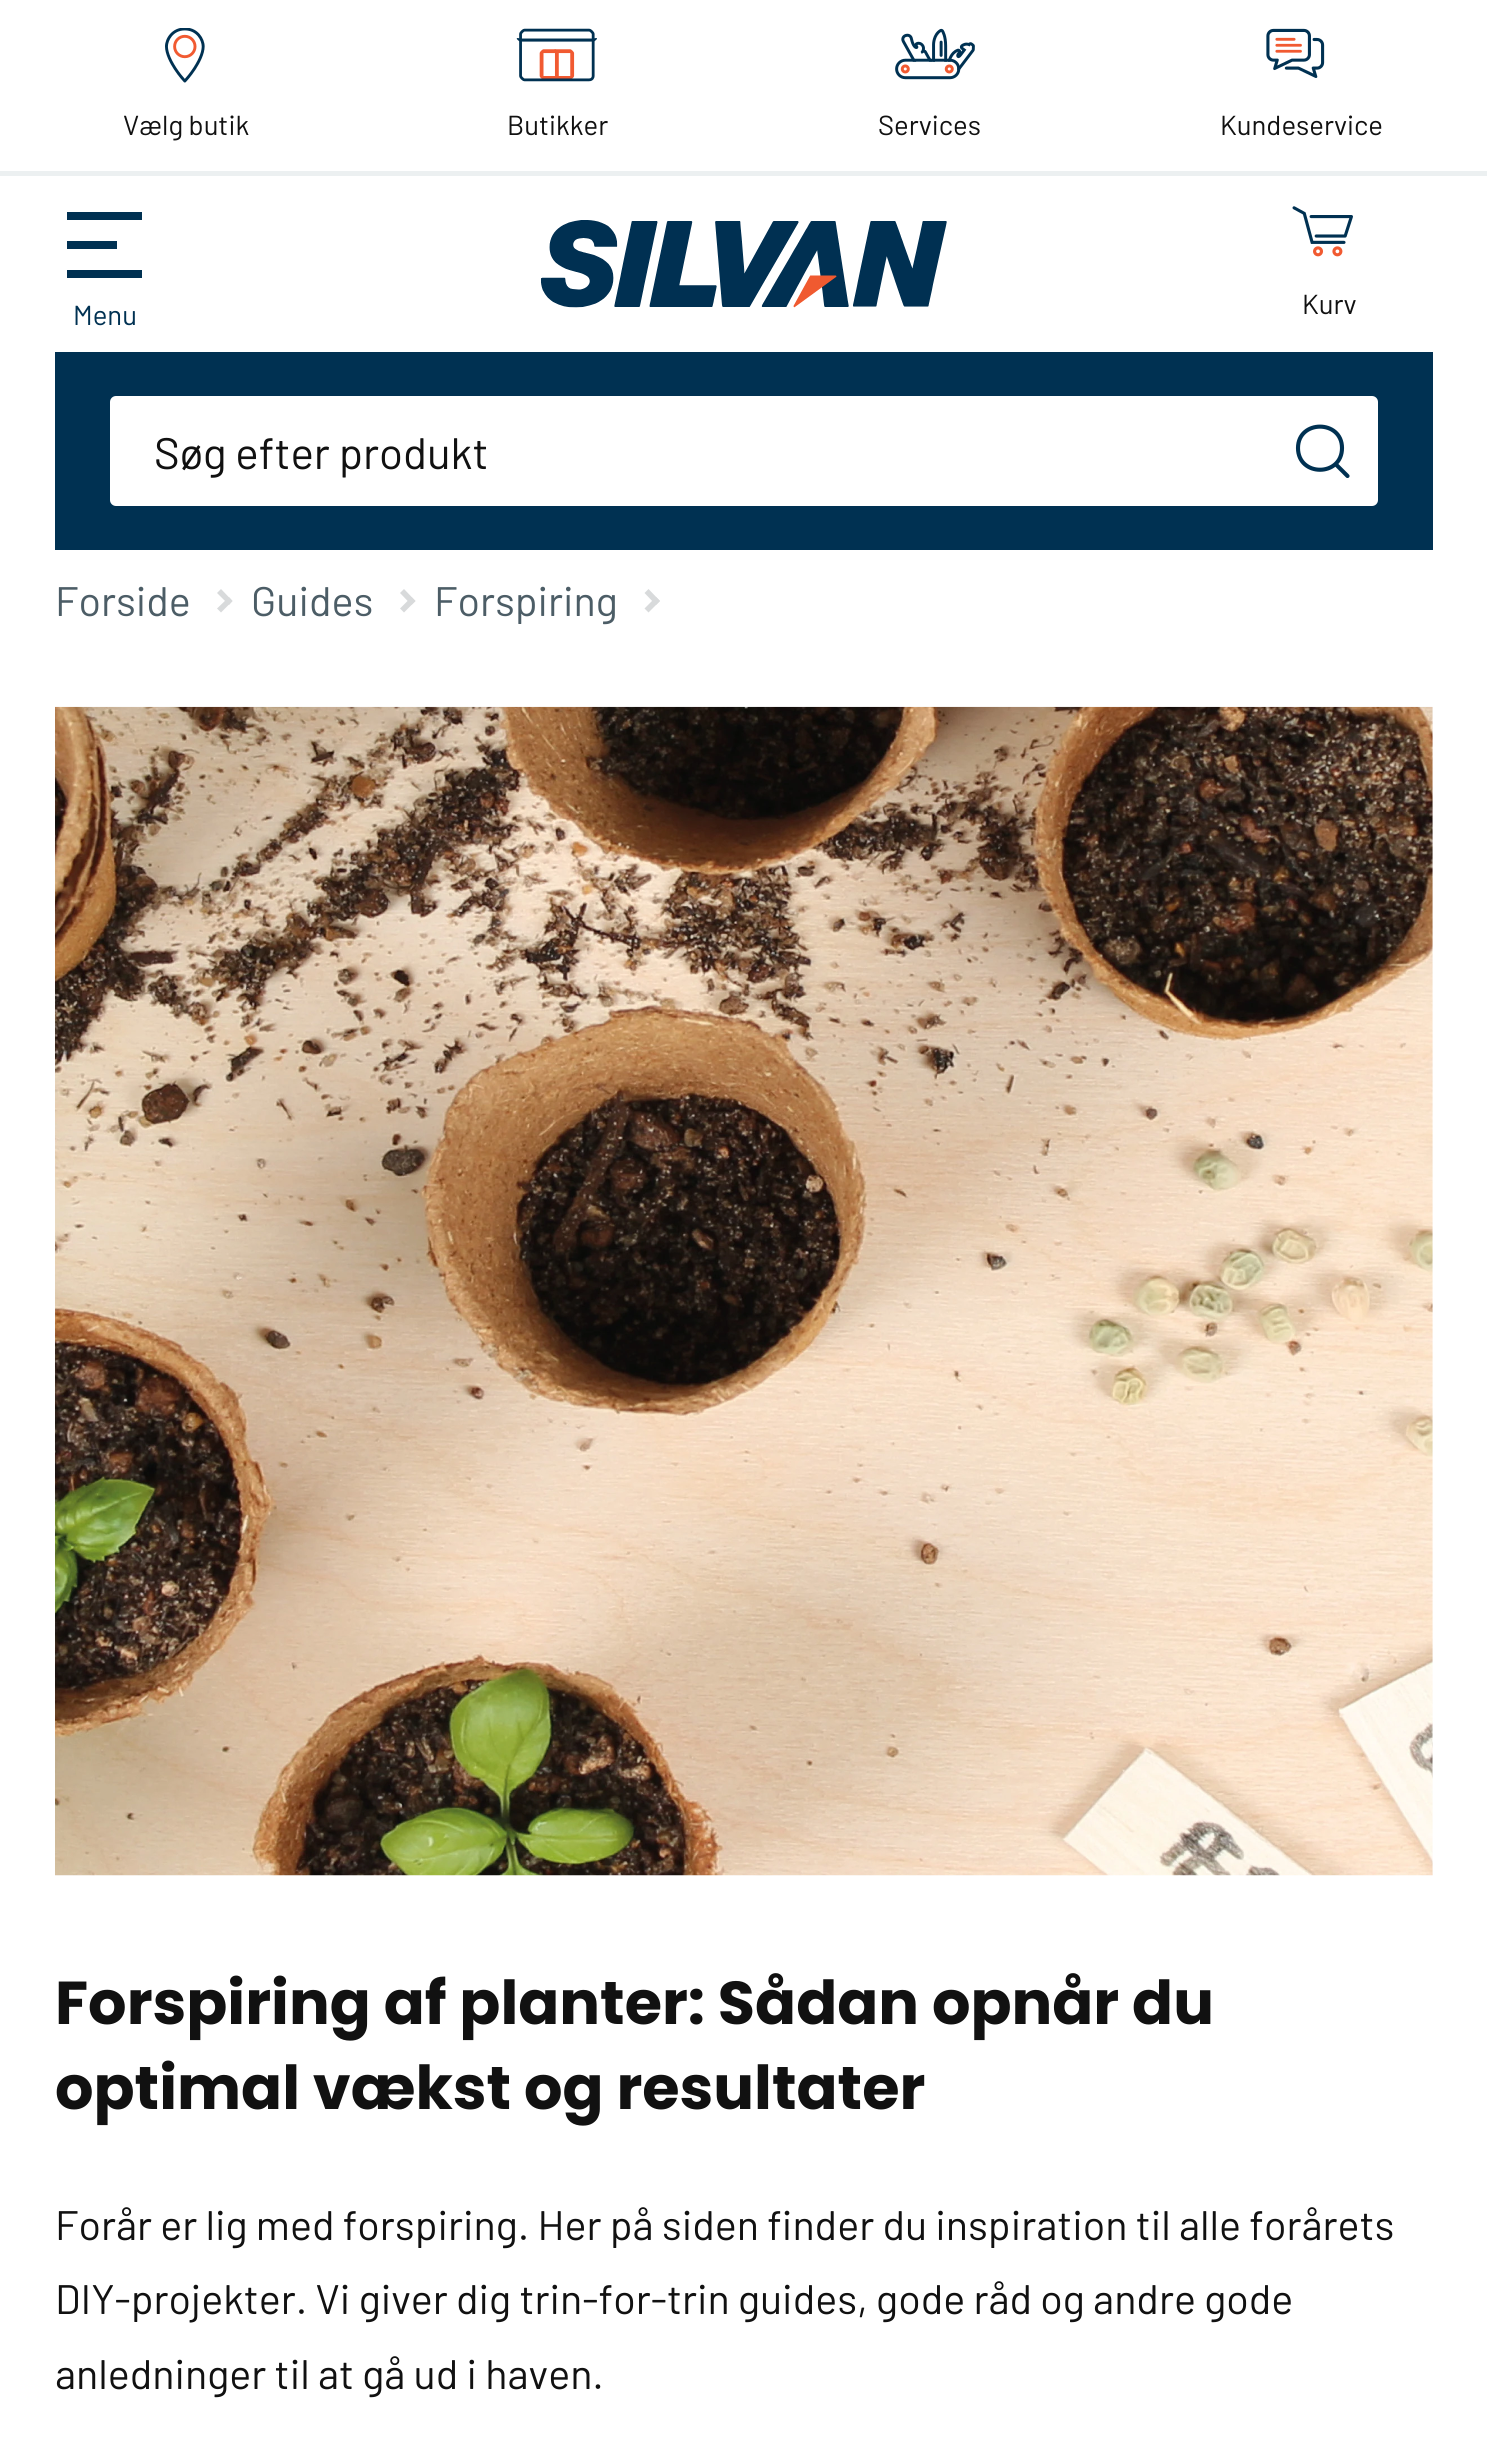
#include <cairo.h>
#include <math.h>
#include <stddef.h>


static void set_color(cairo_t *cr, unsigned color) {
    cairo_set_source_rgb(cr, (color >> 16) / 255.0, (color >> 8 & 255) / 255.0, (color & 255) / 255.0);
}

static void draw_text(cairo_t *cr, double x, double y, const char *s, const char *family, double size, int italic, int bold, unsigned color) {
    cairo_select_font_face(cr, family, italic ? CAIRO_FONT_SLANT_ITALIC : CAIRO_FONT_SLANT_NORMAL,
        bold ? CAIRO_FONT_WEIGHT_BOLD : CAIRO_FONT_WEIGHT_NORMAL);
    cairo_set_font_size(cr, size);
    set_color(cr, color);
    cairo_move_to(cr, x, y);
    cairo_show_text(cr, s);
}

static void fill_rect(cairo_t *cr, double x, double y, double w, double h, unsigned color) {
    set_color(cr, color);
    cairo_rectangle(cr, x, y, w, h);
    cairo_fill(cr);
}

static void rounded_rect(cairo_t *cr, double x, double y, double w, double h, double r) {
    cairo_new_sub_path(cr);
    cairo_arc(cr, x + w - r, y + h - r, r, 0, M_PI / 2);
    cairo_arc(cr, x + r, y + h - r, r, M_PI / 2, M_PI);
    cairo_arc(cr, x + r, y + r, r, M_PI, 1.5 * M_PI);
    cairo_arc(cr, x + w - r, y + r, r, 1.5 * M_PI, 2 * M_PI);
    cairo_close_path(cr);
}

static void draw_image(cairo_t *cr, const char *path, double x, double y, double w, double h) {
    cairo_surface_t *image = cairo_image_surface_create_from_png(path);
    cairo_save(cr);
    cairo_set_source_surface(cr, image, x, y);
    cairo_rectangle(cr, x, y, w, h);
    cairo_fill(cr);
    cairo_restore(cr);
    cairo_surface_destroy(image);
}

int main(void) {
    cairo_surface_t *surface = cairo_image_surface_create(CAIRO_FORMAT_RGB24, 1487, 2459);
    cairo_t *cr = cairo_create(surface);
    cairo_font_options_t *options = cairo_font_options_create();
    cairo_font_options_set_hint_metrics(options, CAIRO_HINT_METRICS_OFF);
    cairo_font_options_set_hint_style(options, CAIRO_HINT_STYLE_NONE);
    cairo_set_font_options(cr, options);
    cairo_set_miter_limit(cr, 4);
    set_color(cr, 0xFFFFFF);
    cairo_paint(cr);
    fill_rect(cr, 0, 171, 1487, 5, 0xECF0F1);
    draw_image(cr, "assets/img1.png", 165, 28, 40, 55);
    draw_text(cr, 123, 135, "Vælg butik", "Barlow", 27.5, 0, 0, 0x111111);
    draw_image(cr, "assets/img2.png", 516, 28, 81, 54);
    draw_text(cr, 507, 135, "Butikker", "Barlow", 27.5, 0, 0, 0x111111);
    draw_image(cr, "assets/img3.png", 895, 28, 80, 52);
    draw_text(cr, 878, 135, "Services", "Barlow", 27.5, 0, 0, 0x111111);
    draw_image(cr, "assets/img4.png", 1266, 28, 59, 50);
    draw_text(cr, 1220, 135, "Kundeservice", "Barlow", 27.5, 0, 0, 0x111111);
    set_color(cr, 0x003152);
    cairo_new_path(cr);
    cairo_move_to(cr, 67, 212);
    cairo_line_to(cr, 142, 212);
    cairo_line_to(cr, 142, 220);
    cairo_line_to(cr, 67, 220);
    cairo_close_path(cr);
    cairo_move_to(cr, 67, 241);
    cairo_line_to(cr, 117, 241);
    cairo_line_to(cr, 117, 249);
    cairo_line_to(cr, 67, 249);
    cairo_close_path(cr);
    cairo_move_to(cr, 67, 270);
    cairo_line_to(cr, 142, 270);
    cairo_line_to(cr, 142, 278);
    cairo_line_to(cr, 67, 278);
    cairo_close_path(cr);
    cairo_fill(cr);
    draw_text(cr, 73, 325, "Menu", "Barlow", 27.5, 0, 0, 0x003152);
    draw_image(cr, "assets/img5.png", 540, 220, 407, 88);
    draw_image(cr, "assets/img6.png", 1292, 206, 61, 51);
    draw_text(cr, 1302, 314, "Kurv", "Barlow", 27.5, 0, 0, 0x111111);
    fill_rect(cr, 55, 352, 1378, 198, 0x003152);
    set_color(cr, 0xFFFFFF);
    rounded_rect(cr, 110, 396, 1268, 110, 6);
    cairo_fill(cr);
    draw_text(cr, 154, 469, "Søg efter produkt", "Barlow", 44, 0, 0, 0x111111);
    cairo_new_path(cr);
    cairo_move_to(cr, 1336.5, 465);
    cairo_line_to(cr, 1347.5, 476);
    cairo_move_to(cr, 1298, 448);
    cairo_curve_to(cr, 1298, 477, 1342, 477, 1342, 448);
    cairo_curve_to(cr, 1342, 419.5, 1298, 419.5, 1298, 448);
    set_color(cr, 0x003152);
    cairo_set_line_width(cr, 4.1);
    cairo_set_line_cap(cr, CAIRO_LINE_CAP_ROUND);
    cairo_set_line_join(cr, CAIRO_LINE_JOIN_ROUND);
    cairo_stroke(cr);
    draw_text(cr, 55, 616, "Forside", "Barlow", 41.25, 0, 0, 0x4C5D66);
    set_color(cr, 0xD8DADB);
    cairo_new_path(cr);
    cairo_move_to(cr, 229, 605);
    cairo_line_to(cr, 217, 593);
    cairo_line_to(cr, 221, 589);
    cairo_line_to(cr, 232.5, 601);
    cairo_close_path(cr);
    cairo_fill(cr);
    cairo_new_path(cr);
    cairo_move_to(cr, 221, 612.5);
    cairo_line_to(cr, 217, 608.5);
    cairo_line_to(cr, 229, 597);
    cairo_line_to(cr, 232.5, 601);
    cairo_close_path(cr);
    cairo_fill(cr);
    draw_text(cr, 251, 616, "Guides", "Barlow", 41.25, 0, 0, 0x4C5D66);
    set_color(cr, 0xD8DADB);
    cairo_new_path(cr);
    cairo_move_to(cr, 411.5, 605);
    cairo_line_to(cr, 400, 593);
    cairo_line_to(cr, 404, 589);
    cairo_line_to(cr, 415.5, 601);
    cairo_close_path(cr);
    cairo_fill(cr);
    cairo_new_path(cr);
    cairo_move_to(cr, 404, 612.5);
    cairo_line_to(cr, 400, 608.5);
    cairo_line_to(cr, 411.5, 597);
    cairo_line_to(cr, 415.5, 601);
    cairo_close_path(cr);
    cairo_fill(cr);
    draw_text(cr, 434, 616, "Forspiring", "Barlow", 41.25, 0, 0, 0x4C5D66);
    set_color(cr, 0xD8DADB);
    cairo_new_path(cr);
    cairo_move_to(cr, 656, 605);
    cairo_line_to(cr, 644.5, 593);
    cairo_line_to(cr, 648.5, 589);
    cairo_line_to(cr, 660, 601);
    cairo_close_path(cr);
    cairo_fill(cr);
    cairo_new_path(cr);
    cairo_move_to(cr, 648.5, 612.5);
    cairo_line_to(cr, 644.5, 608.5);
    cairo_line_to(cr, 656, 597);
    cairo_line_to(cr, 660, 601);
    cairo_close_path(cr);
    cairo_fill(cr);
    draw_image(cr, "assets/img7.png", 55, 706, 1378, 1170);
    draw_text(cr, 55, 2024, "Forspiring af planter: Sådan opnår du", "Poppins", 60.5, 0, 1, 0x111111);
    draw_text(cr, 55, 2109, "optimal vækst og resultater", "Poppins", 60.5, 0, 1, 0x111111);
    draw_text(cr, 55, 2240, "Forår er lig med forspiring. Her på siden finder du inspiration til alle forårets", "Barlow", 41.25, 0, 0, 0x111111);
    draw_text(cr, 55, 2314, "DIY-projekter. Vi giver dig trin-for-trin guides, gode råd og andre gode", "Barlow", 41.25, 0, 0, 0x111111);
    draw_text(cr, 55, 2389, "anledninger til at gå ud i haven.", "Barlow", 41.25, 0, 0, 0x111111);
    cairo_surface_write_to_png(surface, "output.png");
    cairo_font_options_destroy(options);
    cairo_destroy(cr);
    cairo_surface_destroy(surface);
    return 0;
}
